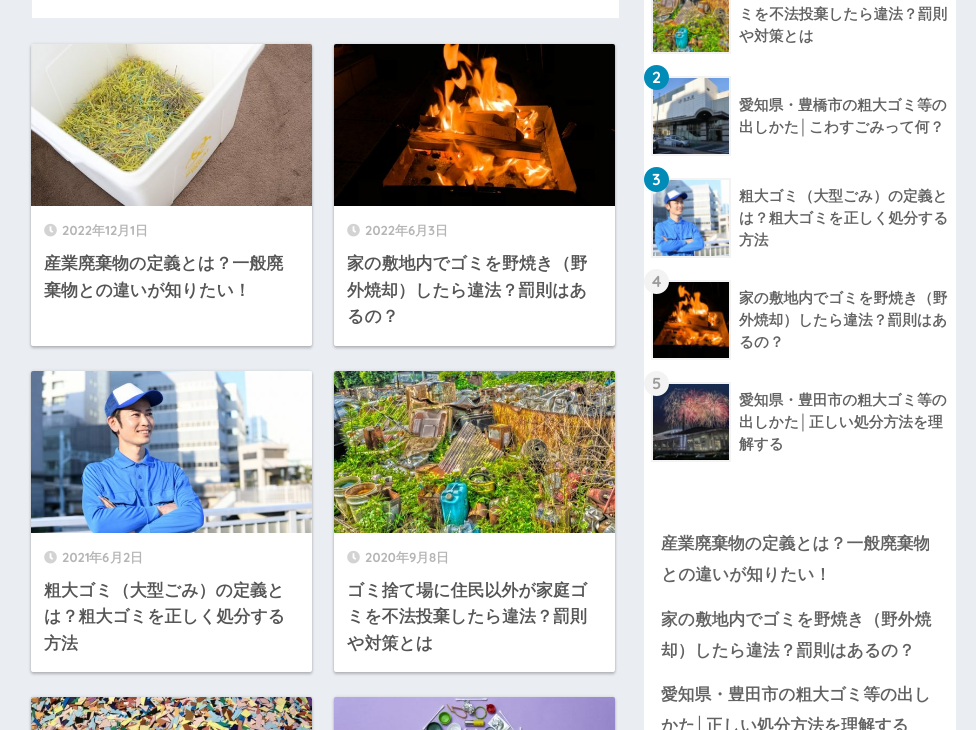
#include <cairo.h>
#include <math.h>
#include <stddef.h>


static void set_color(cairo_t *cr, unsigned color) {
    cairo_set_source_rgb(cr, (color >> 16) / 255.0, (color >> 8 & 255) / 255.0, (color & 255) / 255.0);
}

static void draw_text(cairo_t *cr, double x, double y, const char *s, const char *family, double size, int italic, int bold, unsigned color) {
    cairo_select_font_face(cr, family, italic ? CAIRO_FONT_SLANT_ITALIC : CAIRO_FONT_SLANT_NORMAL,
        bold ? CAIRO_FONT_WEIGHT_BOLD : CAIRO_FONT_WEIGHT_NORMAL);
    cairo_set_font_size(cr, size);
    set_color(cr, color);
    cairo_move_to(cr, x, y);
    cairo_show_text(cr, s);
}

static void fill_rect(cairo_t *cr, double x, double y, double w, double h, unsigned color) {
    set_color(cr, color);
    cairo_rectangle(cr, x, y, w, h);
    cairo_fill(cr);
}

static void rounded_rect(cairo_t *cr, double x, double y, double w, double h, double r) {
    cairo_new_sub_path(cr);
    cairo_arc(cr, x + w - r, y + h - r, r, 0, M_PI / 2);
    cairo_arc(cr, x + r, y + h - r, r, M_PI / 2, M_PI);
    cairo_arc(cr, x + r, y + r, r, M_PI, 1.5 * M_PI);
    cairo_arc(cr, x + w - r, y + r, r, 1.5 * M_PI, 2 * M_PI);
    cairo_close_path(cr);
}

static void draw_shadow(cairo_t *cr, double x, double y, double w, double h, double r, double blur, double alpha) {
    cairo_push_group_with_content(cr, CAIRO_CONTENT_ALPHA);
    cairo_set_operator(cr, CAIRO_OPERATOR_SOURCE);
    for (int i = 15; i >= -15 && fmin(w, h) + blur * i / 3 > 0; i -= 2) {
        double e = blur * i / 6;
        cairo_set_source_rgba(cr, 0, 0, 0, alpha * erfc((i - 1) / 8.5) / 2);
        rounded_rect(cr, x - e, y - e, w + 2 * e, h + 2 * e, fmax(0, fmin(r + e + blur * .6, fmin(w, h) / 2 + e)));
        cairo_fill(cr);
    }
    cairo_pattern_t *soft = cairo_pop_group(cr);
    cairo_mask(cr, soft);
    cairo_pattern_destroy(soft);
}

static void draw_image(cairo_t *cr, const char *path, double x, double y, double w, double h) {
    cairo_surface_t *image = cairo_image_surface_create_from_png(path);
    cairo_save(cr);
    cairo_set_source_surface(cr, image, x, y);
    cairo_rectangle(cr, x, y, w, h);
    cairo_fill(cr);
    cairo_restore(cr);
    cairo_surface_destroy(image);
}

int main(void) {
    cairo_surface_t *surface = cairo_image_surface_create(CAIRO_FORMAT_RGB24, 976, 730);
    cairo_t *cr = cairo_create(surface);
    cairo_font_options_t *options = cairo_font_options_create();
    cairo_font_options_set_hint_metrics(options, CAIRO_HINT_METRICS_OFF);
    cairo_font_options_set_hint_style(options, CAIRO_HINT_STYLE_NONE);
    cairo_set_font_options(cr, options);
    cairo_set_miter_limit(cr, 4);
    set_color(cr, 0xEAEDF2);
    cairo_paint(cr);
    fill_rect(cr, 32, 0, 587, 18, 0xFFFFFF);
    set_color(cr, 0x000000);
    draw_shadow(cr, 31, 46, 281, 302, 2, 1.5, 0.22);
    draw_shadow(cr, 31, 44, 281, 302, 2, 1.5, 0.12);
    set_color(cr, 0xFFFFFF);
    rounded_rect(cr, 31, 44, 281, 302, 2);
    cairo_fill(cr);
    draw_image(cr, "assets/img1.png", 31, 44, 281, 162);
    draw_image(cr, "assets/img2.png", 44, 223, 13, 14);
    draw_text(cr, 62, 235, "2022", "Quicksand", 13, 0, 1, 0xB5B5B5);
    draw_text(cr, 92, 235, "年", "WenQuanYi Zen Hei", 13, 0, 1, 0xB5B5B5);
    draw_text(cr, 105, 235, "12", "Quicksand", 13, 0, 1, 0xB5B5B5);
    draw_text(cr, 117, 235, "月", "WenQuanYi Zen Hei", 13, 0, 1, 0xB5B5B5);
    draw_text(cr, 130, 235, "1", "Quicksand", 13, 0, 1, 0xB5B5B5);
    draw_text(cr, 135, 235, "日", "WenQuanYi Zen Hei", 13, 0, 1, 0xB5B5B5);
    draw_text(cr, 44, 269, "産業廃棄物の定義とは？一般廃", "WenQuanYi Zen Hei", 17, 0, 1, 0x555555);
    draw_text(cr, 44, 296, "棄物との違いが知りたい！", "WenQuanYi Zen Hei", 17, 0, 1, 0x555555);
    set_color(cr, 0x000000);
    draw_shadow(cr, 334, 46, 281, 302, 2, 1.5, 0.22);
    draw_shadow(cr, 334, 44, 281, 302, 2, 1.5, 0.12);
    set_color(cr, 0xFFFFFF);
    rounded_rect(cr, 334, 44, 281, 302, 2);
    cairo_fill(cr);
    draw_image(cr, "assets/img3.png", 334, 44, 281, 162);
    draw_image(cr, "assets/img2.png", 347, 223, 13, 14);
    draw_text(cr, 365, 235, "2022", "Quicksand", 13, 0, 1, 0xB5B5B5);
    draw_text(cr, 395, 235, "年", "WenQuanYi Zen Hei", 13, 0, 1, 0xB5B5B5);
    draw_text(cr, 408, 235, "6", "Quicksand", 13, 0, 1, 0xB5B5B5);
    draw_text(cr, 415, 235, "月", "WenQuanYi Zen Hei", 13, 0, 1, 0xB5B5B5);
    draw_text(cr, 428, 235, "3", "Quicksand", 13, 0, 1, 0xB5B5B5);
    draw_text(cr, 435, 235, "日", "WenQuanYi Zen Hei", 13, 0, 1, 0xB5B5B5);
    draw_text(cr, 347, 269, "家の敷地内でゴミを野焼き（野", "WenQuanYi Zen Hei", 17, 0, 1, 0x555555);
    draw_text(cr, 347, 296, "外焼却）したら違法？罰則はあ", "WenQuanYi Zen Hei", 17, 0, 1, 0x555555);
    draw_text(cr, 347, 322, "るの？", "WenQuanYi Zen Hei", 17, 0, 1, 0x555555);
    set_color(cr, 0x000000);
    draw_shadow(cr, 31, 373, 281, 301, 2, 1.5, 0.22);
    draw_shadow(cr, 31, 371, 281, 301, 2, 1.5, 0.12);
    set_color(cr, 0xFFFFFF);
    rounded_rect(cr, 31, 371, 281, 301, 2);
    cairo_fill(cr);
    draw_image(cr, "assets/img4.png", 31, 371, 281, 162);
    draw_image(cr, "assets/img2.png", 44, 550, 13, 14);
    draw_text(cr, 62, 562, "2021", "Quicksand", 13, 0, 1, 0xB5B5B5);
    draw_text(cr, 89, 562, "年", "WenQuanYi Zen Hei", 13, 0, 1, 0xB5B5B5);
    draw_text(cr, 102, 562, "6", "Quicksand", 13, 0, 1, 0xB5B5B5);
    draw_text(cr, 110, 562, "月", "WenQuanYi Zen Hei", 13, 0, 1, 0xB5B5B5);
    draw_text(cr, 123, 562, "2", "Quicksand", 13, 0, 1, 0xB5B5B5);
    draw_text(cr, 130, 562, "日", "WenQuanYi Zen Hei", 13, 0, 1, 0xB5B5B5);
    draw_text(cr, 44, 596, "粗大ゴミ（大型ごみ）の定義と", "WenQuanYi Zen Hei", 17, 0, 1, 0x555555);
    draw_text(cr, 44, 622, "は？粗大ゴミを正しく処分する", "WenQuanYi Zen Hei", 17, 0, 1, 0x555555);
    draw_text(cr, 44, 649, "方法", "WenQuanYi Zen Hei", 17, 0, 1, 0x555555);
    set_color(cr, 0x000000);
    draw_shadow(cr, 334, 373, 281, 301, 2, 1.5, 0.22);
    draw_shadow(cr, 334, 371, 281, 301, 2, 1.5, 0.12);
    set_color(cr, 0xFFFFFF);
    rounded_rect(cr, 334, 371, 281, 301, 2);
    cairo_fill(cr);
    draw_image(cr, "assets/img5.png", 334, 371, 281, 162);
    draw_image(cr, "assets/img2.png", 347, 550, 13, 14);
    draw_text(cr, 365, 562, "2020", "Quicksand", 13, 0, 1, 0xB5B5B5);
    draw_text(cr, 396, 562, "年", "WenQuanYi Zen Hei", 13, 0, 1, 0xB5B5B5);
    draw_text(cr, 409, 562, "9", "Quicksand", 13, 0, 1, 0xB5B5B5);
    draw_text(cr, 416, 562, "月", "WenQuanYi Zen Hei", 13, 0, 1, 0xB5B5B5);
    draw_text(cr, 429, 562, "8", "Quicksand", 13, 0, 1, 0xB5B5B5);
    draw_text(cr, 436, 562, "日", "WenQuanYi Zen Hei", 13, 0, 1, 0xB5B5B5);
    draw_text(cr, 347, 596, "ゴミ捨て場に住民以外が家庭ゴ", "WenQuanYi Zen Hei", 17, 0, 1, 0x555555);
    draw_text(cr, 347, 622, "ミを不法投棄したら違法？罰則", "WenQuanYi Zen Hei", 17, 0, 1, 0x555555);
    draw_text(cr, 347, 649, "や対策とは", "WenQuanYi Zen Hei", 17, 0, 1, 0x555555);
    set_color(cr, 0x000000);
    draw_shadow(cr, 31, 699, 281, 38, 2, 1.5, 0.22);
    draw_shadow(cr, 31, 697, 281, 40, 2, 1.5, 0.12);
    draw_image(cr, "assets/img6.png", 31, 697, 281, 33);
    draw_shadow(cr, 334, 699, 281, 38, 2, 1.5, 0.22);
    draw_shadow(cr, 334, 697, 281, 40, 2, 1.5, 0.12);
    draw_image(cr, "assets/img7.png", 334, 697, 281, 33);
    fill_rect(cr, 644, 0, 312, 730, 0xFFFFFF);
    cairo_rectangle(cr, 652, -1, 78, 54);
    set_color(cr, 0xF3F3F3);
    cairo_stroke(cr);
    draw_image(cr, "assets/img8.png", 653, 0, 76, 52);
    draw_text(cr, 739, 19, "ミを不法投棄したら違法？罰則", "WenQuanYi Zen Hei", 14.75, 0, 1, 0x626262);
    draw_text(cr, 739, 41, "や対策とは", "WenQuanYi Zen Hei", 14.75, 0, 1, 0x626262);
    cairo_rectangle(cr, 652, 77, 78, 78);
    set_color(cr, 0xF3F3F3);
    cairo_stroke(cr);
    draw_image(cr, "assets/img9.png", 653, 78, 76, 76);
    set_color(cr, 0x008CB7);
    cairo_arc(cr, 656.5, 77.5, 12.5, 0, 2 * M_PI);
    cairo_fill(cr);
    draw_text(cr, 652, 83, "2", "Quicksand", 16, 0, 1, 0xFFFFFF);
    draw_text(cr, 739, 110, "愛知県・豊橋市の粗大ゴミ等の", "WenQuanYi Zen Hei", 14.75, 0, 1, 0x626262);
    draw_text(cr, 739, 132, "出しかた", "WenQuanYi Zen Hei", 14.75, 0, 1, 0x626262);
    draw_text(cr, 799, 132, "│", "Liberation Sans", 14.75, 0, 1, 0x626262);
    draw_text(cr, 809, 132, "こわすごみって何？", "WenQuanYi Zen Hei", 14.75, 0, 1, 0x626262);
    cairo_rectangle(cr, 652, 179, 78, 78);
    set_color(cr, 0xF3F3F3);
    cairo_stroke(cr);
    draw_image(cr, "assets/img10.png", 653, 180, 76, 76);
    set_color(cr, 0x008CB7);
    cairo_arc(cr, 656.5, 179.5, 12.5, 0, 2 * M_PI);
    cairo_fill(cr);
    draw_text(cr, 652, 185, "3", "Quicksand", 16, 0, 1, 0xFFFFFF);
    draw_text(cr, 739, 201, "粗大ゴミ（大型ごみ）の定義と", "WenQuanYi Zen Hei", 14.75, 0, 1, 0x626262);
    draw_text(cr, 739, 223, "は？粗大ゴミを正しく処分する", "WenQuanYi Zen Hei", 14.75, 0, 1, 0x626262);
    draw_text(cr, 739, 245, "方法", "WenQuanYi Zen Hei", 14.75, 0, 1, 0x626262);
    cairo_rectangle(cr, 652, 281, 78, 78);
    set_color(cr, 0xF3F3F3);
    cairo_stroke(cr);
    draw_image(cr, "assets/img11.png", 653, 282, 76, 76);
    cairo_arc(cr, 656.5, 281.5, 12.5, 0, 2 * M_PI);
    cairo_fill(cr);
    draw_text(cr, 652, 287, "4", "Quicksand", 16, 0, 1, 0x9A9A9A);
    draw_text(cr, 739, 303, "家の敷地内でゴミを野焼き（野", "WenQuanYi Zen Hei", 14.75, 0, 1, 0x626262);
    draw_text(cr, 739, 325, "外焼却）したら違法？罰則はあ", "WenQuanYi Zen Hei", 14.75, 0, 1, 0x626262);
    draw_text(cr, 739, 347, "るの？", "WenQuanYi Zen Hei", 14.75, 0, 1, 0x626262);
    cairo_rectangle(cr, 652, 383, 78, 78);
    set_color(cr, 0xF3F3F3);
    cairo_stroke(cr);
    draw_image(cr, "assets/img12.png", 653, 384, 76, 76);
    cairo_arc(cr, 656.5, 383.5, 12.5, 0, 2 * M_PI);
    cairo_fill(cr);
    draw_text(cr, 652, 389, "5", "Quicksand", 16, 0, 1, 0x9A9A9A);
    draw_text(cr, 739, 405, "愛知県・豊田市の粗大ゴミ等の", "WenQuanYi Zen Hei", 14.75, 0, 1, 0x626262);
    draw_text(cr, 739, 427, "出しかた", "WenQuanYi Zen Hei", 14.75, 0, 1, 0x626262);
    draw_text(cr, 799, 427, "│", "Liberation Sans", 14.75, 0, 1, 0x626262);
    draw_text(cr, 809, 427, "正しい処分方法を理", "WenQuanYi Zen Hei", 14.75, 0, 1, 0x626262);
    draw_text(cr, 739, 449, "解する", "WenQuanYi Zen Hei", 14.75, 0, 1, 0x626262);
    draw_text(cr, 661, 549, "産業廃棄物の定義とは？一般廃棄物", "WenQuanYi Zen Hei", 16.75, 0, 1, 0x626262);
    draw_text(cr, 661, 580, "との違いが知りたい！", "WenQuanYi Zen Hei", 16.75, 0, 1, 0x626262);
    draw_text(cr, 661, 625, "家の敷地内でゴミを野焼き（野外焼", "WenQuanYi Zen Hei", 16.75, 0, 1, 0x626262);
    draw_text(cr, 661, 656, "却）したら違法？罰則はあるの？", "WenQuanYi Zen Hei", 16.75, 0, 1, 0x626262);
    draw_text(cr, 661, 700, "愛知県・豊田市の粗大ゴミ等の出し", "WenQuanYi Zen Hei", 16.75, 0, 1, 0x626262);
    draw_text(cr, 661, 731, "かた", "WenQuanYi Zen Hei", 16.75, 0, 1, 0x626262);
    draw_text(cr, 695, 731, "│", "Liberation Sans", 16.75, 0, 1, 0x626262);
    draw_text(cr, 706, 731, "正しい処分方法を理解する", "WenQuanYi Zen Hei", 16.75, 0, 1, 0x626262);
    cairo_surface_write_to_png(surface, "output.png");
    cairo_font_options_destroy(options);
    cairo_destroy(cr);
    cairo_surface_destroy(surface);
    return 0;
}
